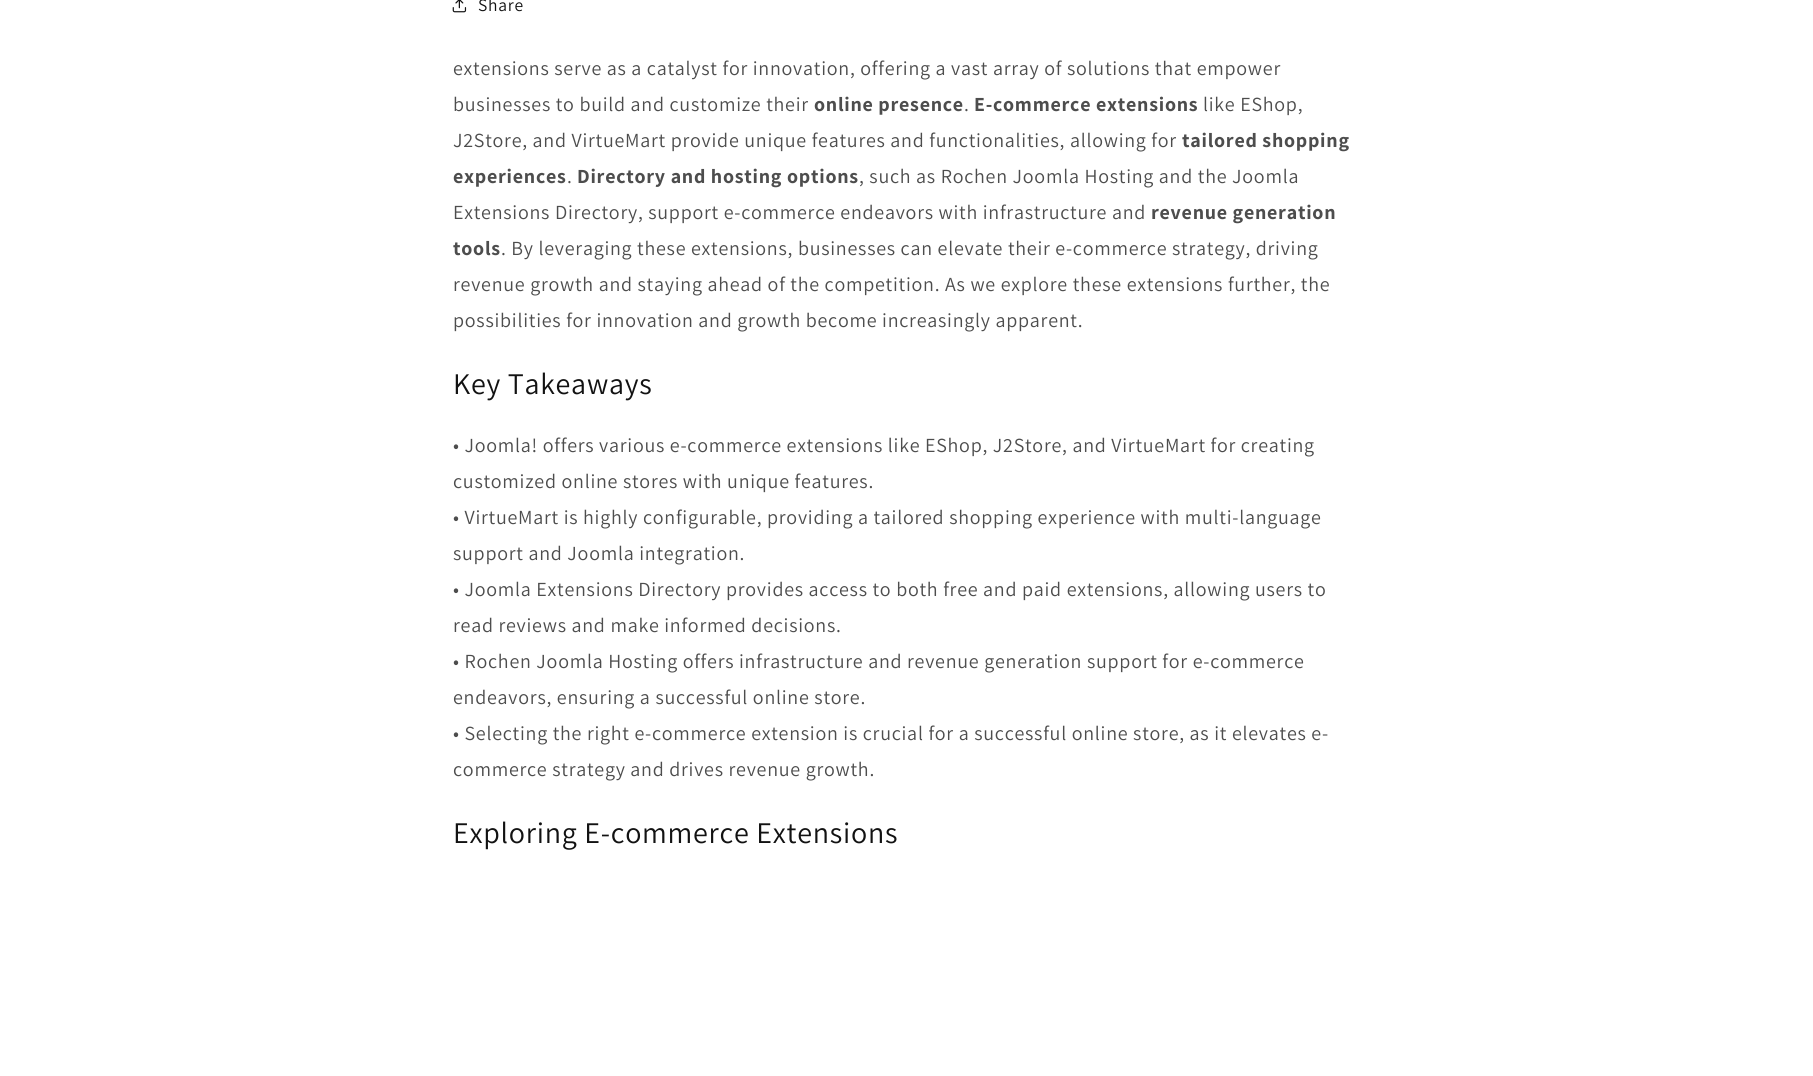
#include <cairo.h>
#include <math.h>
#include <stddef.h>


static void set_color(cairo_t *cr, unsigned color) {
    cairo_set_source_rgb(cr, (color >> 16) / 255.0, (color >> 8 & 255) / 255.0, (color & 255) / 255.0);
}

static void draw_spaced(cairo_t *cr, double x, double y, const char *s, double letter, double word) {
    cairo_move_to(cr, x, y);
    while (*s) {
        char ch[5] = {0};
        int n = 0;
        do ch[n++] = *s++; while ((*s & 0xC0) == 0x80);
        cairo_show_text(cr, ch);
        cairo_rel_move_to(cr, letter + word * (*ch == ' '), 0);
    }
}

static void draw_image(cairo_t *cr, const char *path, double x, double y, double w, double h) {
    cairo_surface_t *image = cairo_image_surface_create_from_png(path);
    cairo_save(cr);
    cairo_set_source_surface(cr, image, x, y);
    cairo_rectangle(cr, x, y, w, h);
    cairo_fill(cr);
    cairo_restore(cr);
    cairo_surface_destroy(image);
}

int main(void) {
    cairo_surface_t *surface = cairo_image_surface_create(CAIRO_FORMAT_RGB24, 1813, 1076);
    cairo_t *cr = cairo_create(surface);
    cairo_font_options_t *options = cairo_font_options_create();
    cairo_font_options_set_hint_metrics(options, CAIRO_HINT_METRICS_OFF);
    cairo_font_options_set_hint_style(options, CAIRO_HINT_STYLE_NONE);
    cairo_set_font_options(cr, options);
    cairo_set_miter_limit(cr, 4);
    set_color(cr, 0xFFFFFF);
    cairo_paint(cr);
    draw_image(cr, "assets/img1.png", 452, 0, 15, 13);
    cairo_select_font_face(cr, "Assistant", CAIRO_FONT_SLANT_NORMAL, CAIRO_FONT_WEIGHT_NORMAL);
    cairo_set_font_size(cr, 17.5);
    set_color(cr, 0x121212);
    draw_spaced(cr, 478, 11, "Share", 0.75, 0);
    cairo_set_font_size(cr, 20);
    set_color(cr, 0x4D4D4D);
    draw_spaced(cr, 453, 75, "extensions serve as a catalyst for innovation, offering a vast array of solutions that empower", 0.75, 0);
    draw_spaced(cr, 453, 111, "businesses to build and customize their", 0.75, 0);
    cairo_select_font_face(cr, "Assistant", CAIRO_FONT_SLANT_NORMAL, CAIRO_FONT_WEIGHT_BOLD);
    draw_spaced(cr, 814, 111, "online presence", 0.75, 0);
    cairo_select_font_face(cr, "Assistant", CAIRO_FONT_SLANT_NORMAL, CAIRO_FONT_WEIGHT_NORMAL);
    draw_spaced(cr, 964, 111, ".", 0.75, 0);
    cairo_select_font_face(cr, "Assistant", CAIRO_FONT_SLANT_NORMAL, CAIRO_FONT_WEIGHT_BOLD);
    draw_spaced(cr, 974, 111, "E-commerce extensions", 0.75, 0);
    cairo_select_font_face(cr, "Assistant", CAIRO_FONT_SLANT_NORMAL, CAIRO_FONT_WEIGHT_NORMAL);
    draw_spaced(cr, 1203, 111, "like EShop,", 0.75, 0);
    draw_spaced(cr, 453, 147, "J2Store, and VirtueMart provide unique features and functionalities, allowing for", 0.75, 0);
    cairo_select_font_face(cr, "Assistant", CAIRO_FONT_SLANT_NORMAL, CAIRO_FONT_WEIGHT_BOLD);
    draw_spaced(cr, 1182, 147, "tailored shopping", 0.75, 0);
    draw_spaced(cr, 453, 183, "experiences", 0.75, 0);
    cairo_select_font_face(cr, "Assistant", CAIRO_FONT_SLANT_NORMAL, CAIRO_FONT_WEIGHT_NORMAL);
    draw_spaced(cr, 567, 183, ".", 0.75, 0);
    cairo_select_font_face(cr, "Assistant", CAIRO_FONT_SLANT_NORMAL, CAIRO_FONT_WEIGHT_BOLD);
    draw_spaced(cr, 577, 183, "Directory and hosting options", 0.75, 0);
    cairo_select_font_face(cr, "Assistant", CAIRO_FONT_SLANT_NORMAL, CAIRO_FONT_WEIGHT_NORMAL);
    draw_spaced(cr, 859, 183, ", such as Rochen Joomla Hosting and the Joomla", 0.75, 0);
    draw_spaced(cr, 453, 219, "Extensions Directory, support e-commerce endeavors with infrastructure and", 0.75, 0);
    cairo_select_font_face(cr, "Assistant", CAIRO_FONT_SLANT_NORMAL, CAIRO_FONT_WEIGHT_BOLD);
    draw_spaced(cr, 1151, 219, "revenue generation", 0.75, 0);
    draw_spaced(cr, 453, 255, "tools", 0.75, 0);
    cairo_select_font_face(cr, "Assistant", CAIRO_FONT_SLANT_NORMAL, CAIRO_FONT_WEIGHT_NORMAL);
    draw_spaced(cr, 501, 255, ". By leveraging these extensions, businesses can elevate their e-commerce strategy, driving", 0.75, 0);
    draw_spaced(cr, 453, 291, "revenue growth and staying ahead of the competition. As we explore these extensions further, the", 0.75, 0);
    draw_spaced(cr, 453, 327, "possibilities for innovation and growth become increasingly apparent.", 0.75, 0);
    cairo_set_font_size(cr, 30);
    set_color(cr, 0x121212);
    draw_spaced(cr, 453, 394, "Key Takeaways", 0.75, 0);
    cairo_set_font_size(cr, 20);
    set_color(cr, 0x4D4D4D);
    draw_spaced(cr, 453, 452, "• Joomla! offers various e-commerce extensions like EShop, J2Store, and VirtueMart for creating", 0.75, 0);
    draw_spaced(cr, 453, 488, "customized online stores with unique features.", 0.75, 0);
    draw_spaced(cr, 453, 524, "• VirtueMart is highly configurable, providing a tailored shopping experience with multi-language", 0.75, 0);
    draw_spaced(cr, 453, 560, "support and Joomla integration.", 0.75, 0);
    draw_spaced(cr, 453, 596, "• Joomla Extensions Directory provides access to both free and paid extensions, allowing users to", 0.75, 0);
    draw_spaced(cr, 453, 632, "read reviews and make informed decisions.", 0.75, 0);
    draw_spaced(cr, 453, 668, "• Rochen Joomla Hosting offers infrastructure and revenue generation support for e-commerce", 0.75, 0);
    draw_spaced(cr, 453, 704, "endeavors, ensuring a successful online store.", 0.75, 0);
    draw_spaced(cr, 453, 740, "• Selecting the right e-commerce extension is crucial for a successful online store, as it elevates e-", 0.75, 0);
    draw_spaced(cr, 453, 776, "commerce strategy and drives revenue growth.", 0.75, 0);
    cairo_set_font_size(cr, 30);
    set_color(cr, 0x121212);
    draw_spaced(cr, 453, 843, "Exploring E-commerce Extensions", 0.75, 0);
    cairo_surface_write_to_png(surface, "output.png");
    cairo_font_options_destroy(options);
    cairo_destroy(cr);
    cairo_surface_destroy(surface);
    return 0;
}
